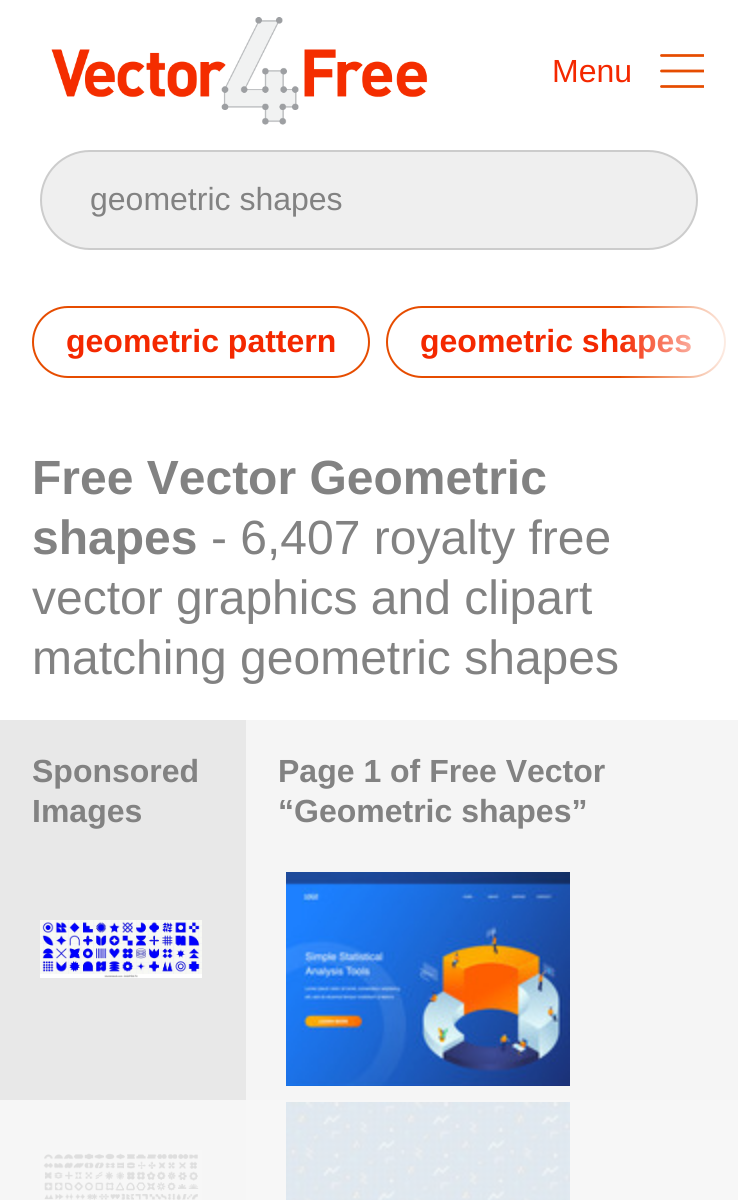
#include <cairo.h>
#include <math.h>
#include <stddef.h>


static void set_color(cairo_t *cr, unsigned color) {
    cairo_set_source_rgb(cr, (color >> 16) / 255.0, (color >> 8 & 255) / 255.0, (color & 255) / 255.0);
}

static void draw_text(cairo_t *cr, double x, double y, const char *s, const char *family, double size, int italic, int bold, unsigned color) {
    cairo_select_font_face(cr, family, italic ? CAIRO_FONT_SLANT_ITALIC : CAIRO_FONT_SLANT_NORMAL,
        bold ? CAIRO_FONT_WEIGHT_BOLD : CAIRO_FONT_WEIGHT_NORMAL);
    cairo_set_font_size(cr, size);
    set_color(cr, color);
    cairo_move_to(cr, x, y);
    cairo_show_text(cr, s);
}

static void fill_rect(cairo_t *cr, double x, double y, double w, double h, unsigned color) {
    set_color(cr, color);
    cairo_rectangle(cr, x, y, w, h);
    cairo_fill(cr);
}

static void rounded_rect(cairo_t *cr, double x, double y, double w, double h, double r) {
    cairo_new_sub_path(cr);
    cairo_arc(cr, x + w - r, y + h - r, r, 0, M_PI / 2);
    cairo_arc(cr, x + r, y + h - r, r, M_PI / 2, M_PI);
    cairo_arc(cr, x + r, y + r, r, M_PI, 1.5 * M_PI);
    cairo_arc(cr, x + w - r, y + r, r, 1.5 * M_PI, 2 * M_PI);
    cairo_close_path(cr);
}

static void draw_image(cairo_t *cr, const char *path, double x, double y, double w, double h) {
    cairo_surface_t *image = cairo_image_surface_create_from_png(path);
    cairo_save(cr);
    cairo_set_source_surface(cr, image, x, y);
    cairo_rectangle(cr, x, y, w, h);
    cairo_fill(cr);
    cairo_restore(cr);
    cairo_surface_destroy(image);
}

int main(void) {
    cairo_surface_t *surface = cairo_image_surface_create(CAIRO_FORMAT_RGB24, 738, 1200);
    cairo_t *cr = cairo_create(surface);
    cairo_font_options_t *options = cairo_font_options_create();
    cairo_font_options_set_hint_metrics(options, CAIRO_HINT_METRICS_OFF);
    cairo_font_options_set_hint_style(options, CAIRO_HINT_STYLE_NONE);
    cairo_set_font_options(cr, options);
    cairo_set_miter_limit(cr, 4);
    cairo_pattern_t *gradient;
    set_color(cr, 0xFFFFFF);
    cairo_paint(cr);
    draw_image(cr, "assets/img1.png", 51, 17, 377, 108);
    draw_text(cr, 552, 82, "Menu", "Liberation Sans", 32, 0, 0, 0xF42800);
    cairo_save(cr);
    cairo_rectangle(cr, 660, 54, 44, 34);
    cairo_clip(cr);
    cairo_new_path(cr);
    cairo_move_to(cr, 661.5, 55.5);
    cairo_line_to(cr, 704, 55.5);
    cairo_move_to(cr, 661.5, 71);
    cairo_line_to(cr, 704, 71);
    cairo_move_to(cr, 661.5, 86.5);
    cairo_line_to(cr, 704, 86.5);
    set_color(cr, 0xE64C00);
    cairo_set_line_width(cr, 2.8);
    cairo_set_line_cap(cr, CAIRO_LINE_CAP_ROUND);
    cairo_set_line_join(cr, CAIRO_LINE_JOIN_ROUND);
    cairo_stroke(cr);
    cairo_restore(cr);
    set_color(cr, 0xEFEFEF);
    rounded_rect(cr, 41, 151, 656, 98, 49);
    cairo_fill_preserve(cr);
    set_color(cr, 0xCCCCCC);
    cairo_stroke(cr);
    draw_text(cr, 90, 210, "geometric shapes", "Liberation Sans", 32, 0, 0, 0x828282);
    rounded_rect(cr, 387, 307, 338, 70, 35);
    set_color(cr, 0xE64C00);
    cairo_stroke(cr);
    draw_text(cr, 420, 352, "geometric shapes", "Liberation Sans", 32, 0, 1, 0xF42800);
    gradient = cairo_pattern_create_linear(618, 361, 738, 361);
    cairo_pattern_add_color_stop_rgba(gradient, 0, 1, 1, 1, 0);
    cairo_pattern_add_color_stop_rgba(gradient, 1, 1, 1, 1, 1);
    cairo_set_source(cr, gradient);
    cairo_pattern_destroy(gradient);
    cairo_rectangle(cr, 621, 306, 105, 72);
    cairo_fill(cr);
    rounded_rect(cr, 33, 307, 336, 70, 35);
    set_color(cr, 0xE64C00);
    cairo_stroke(cr);
    draw_text(cr, 66, 352, "geometric pattern", "Liberation Sans", 32, 0, 1, 0xF42800);
    draw_text(cr, 32, 494, "Free Vector Geometric", "Liberation Sans", 48, 0, 1, 0x828282);
    draw_text(cr, 32, 554, "shapes", "Liberation Sans", 48, 0, 1, 0x828282);
    draw_text(cr, 211, 554, "- 6,407 royalty free", "Liberation Sans", 48, 0, 0, 0x828282);
    draw_text(cr, 32, 614, "vector graphics and clipart", "Liberation Sans", 48, 0, 0, 0x828282);
    draw_text(cr, 32, 674, "matching geometric shapes", "Liberation Sans", 48, 0, 0, 0x828282);
    fill_rect(cr, 246, 720, 492, 380, 0xF5F5F5);
    fill_rect(cr, 246, 1100, 492, 100, 0xF7F7F7);
    fill_rect(cr, 0, 720, 246, 380, 0xE8E8E8);
    fill_rect(cr, 0, 1100, 246, 100, 0xF6F6F6);
    draw_text(cr, 32, 782, "Sponsored", "Liberation Sans", 32, 0, 1, 0x828282);
    draw_text(cr, 32, 822, "Images", "Liberation Sans", 32, 0, 1, 0x828282);
    draw_image(cr, "assets/img2.png", 40, 920, 162, 58);
    draw_image(cr, "assets/img3.png", 40, 1150, 162, 50);
    draw_text(cr, 278, 782, "Page 1 of Free Vector", "Liberation Sans", 32, 0, 1, 0x828282);
    draw_text(cr, 278, 822, "“Geometric shapes”", "Liberation Sans", 32, 0, 1, 0x828282);
    draw_image(cr, "assets/img4.png", 286, 872, 284, 214);
    draw_image(cr, "assets/img5.png", 286, 1102, 284, 98);
    cairo_surface_write_to_png(surface, "output.png");
    cairo_font_options_destroy(options);
    cairo_destroy(cr);
    cairo_surface_destroy(surface);
    return 0;
}
